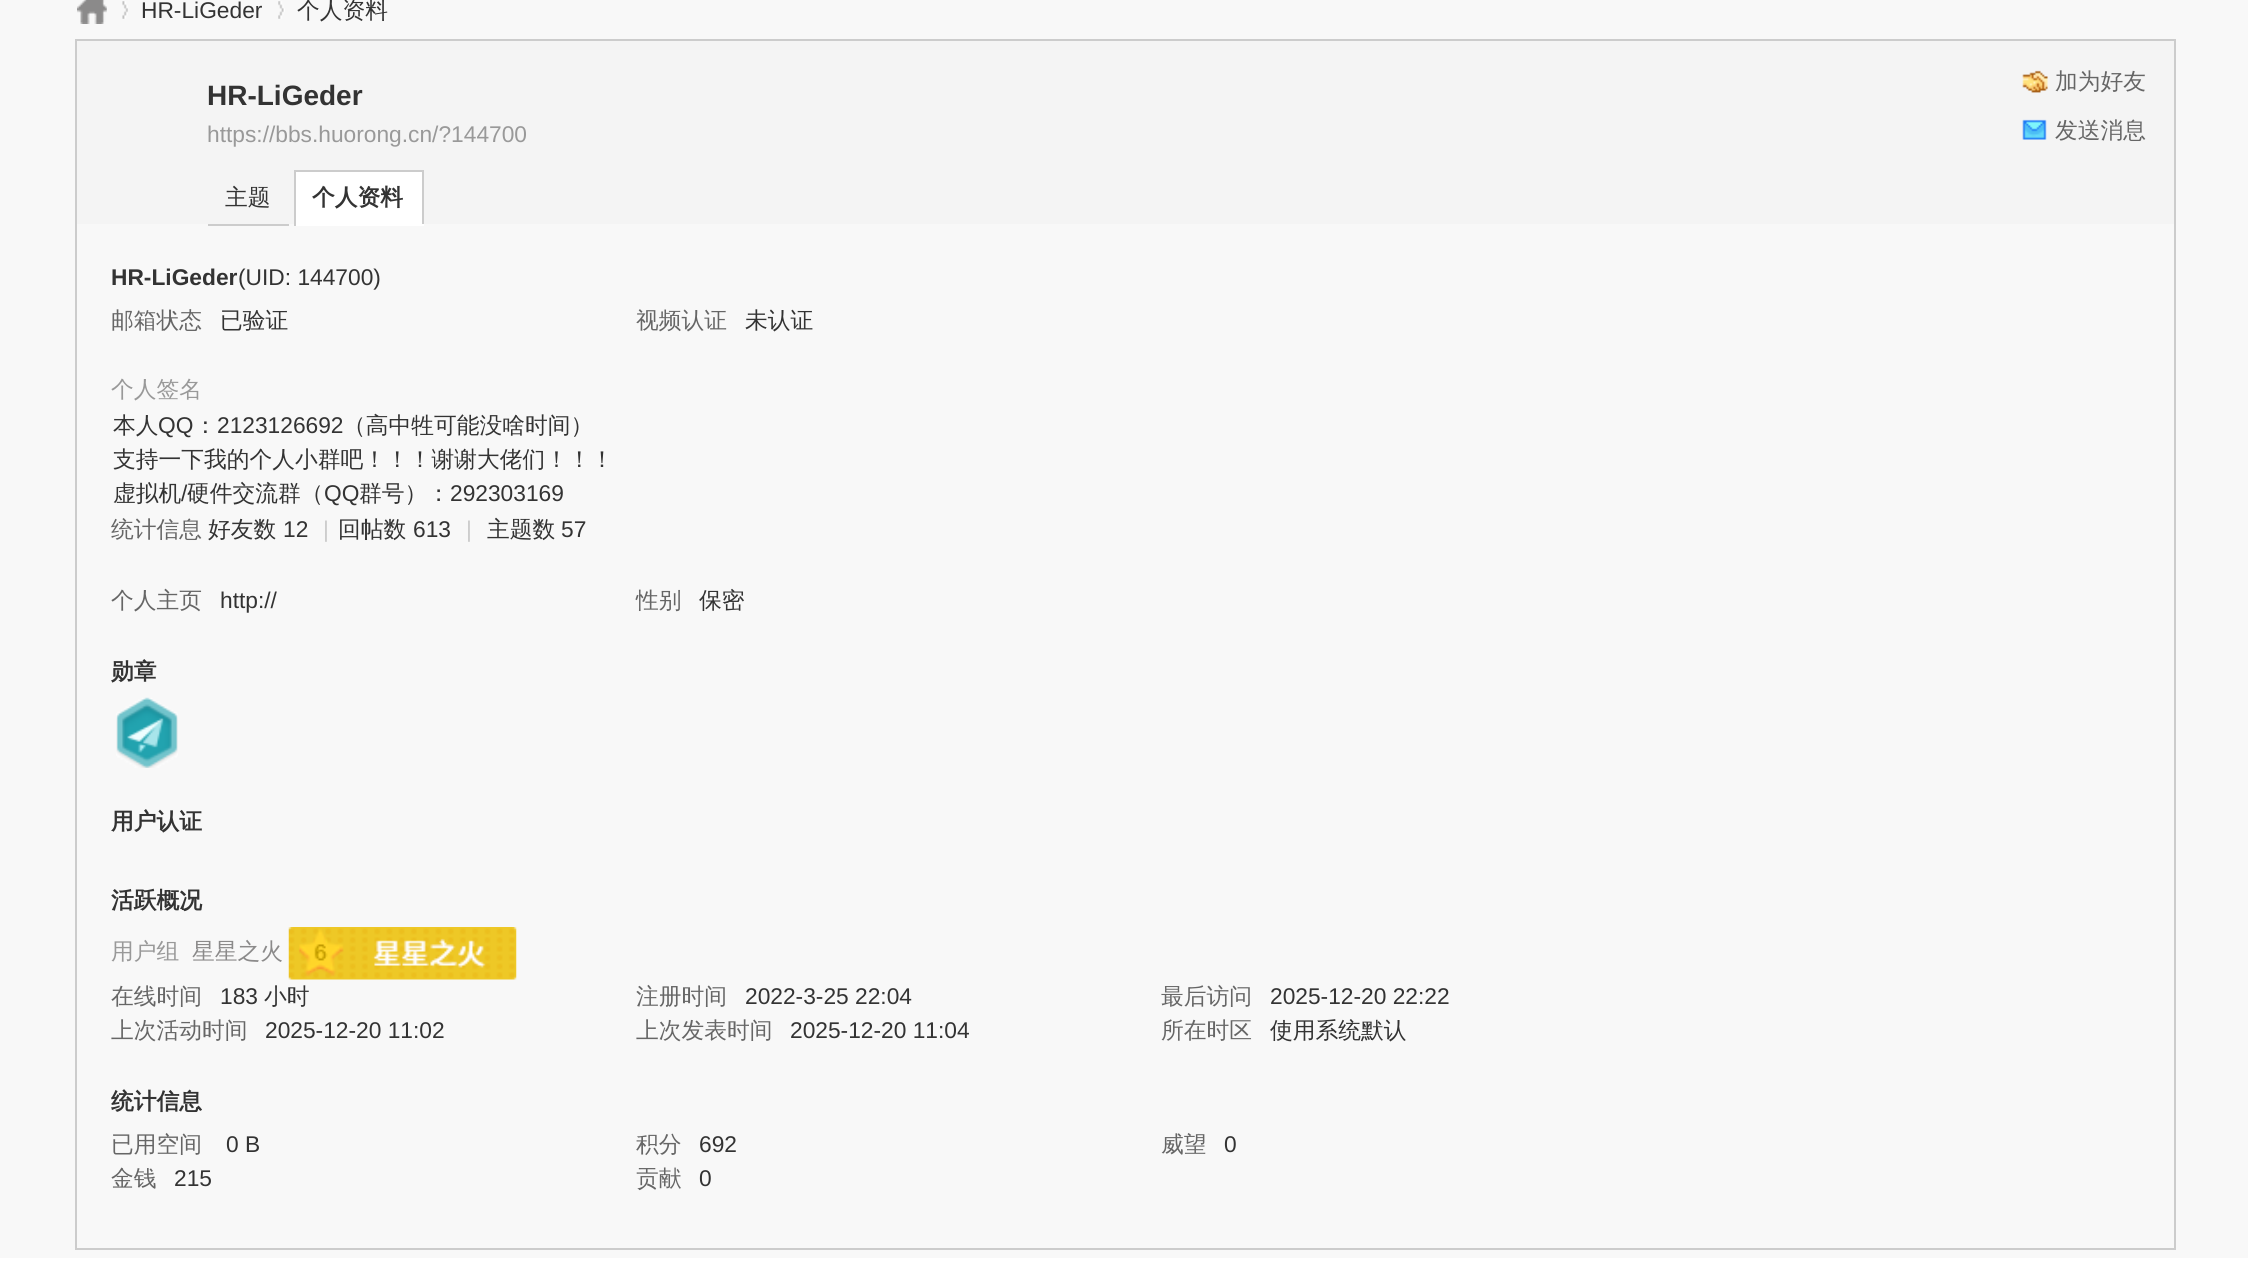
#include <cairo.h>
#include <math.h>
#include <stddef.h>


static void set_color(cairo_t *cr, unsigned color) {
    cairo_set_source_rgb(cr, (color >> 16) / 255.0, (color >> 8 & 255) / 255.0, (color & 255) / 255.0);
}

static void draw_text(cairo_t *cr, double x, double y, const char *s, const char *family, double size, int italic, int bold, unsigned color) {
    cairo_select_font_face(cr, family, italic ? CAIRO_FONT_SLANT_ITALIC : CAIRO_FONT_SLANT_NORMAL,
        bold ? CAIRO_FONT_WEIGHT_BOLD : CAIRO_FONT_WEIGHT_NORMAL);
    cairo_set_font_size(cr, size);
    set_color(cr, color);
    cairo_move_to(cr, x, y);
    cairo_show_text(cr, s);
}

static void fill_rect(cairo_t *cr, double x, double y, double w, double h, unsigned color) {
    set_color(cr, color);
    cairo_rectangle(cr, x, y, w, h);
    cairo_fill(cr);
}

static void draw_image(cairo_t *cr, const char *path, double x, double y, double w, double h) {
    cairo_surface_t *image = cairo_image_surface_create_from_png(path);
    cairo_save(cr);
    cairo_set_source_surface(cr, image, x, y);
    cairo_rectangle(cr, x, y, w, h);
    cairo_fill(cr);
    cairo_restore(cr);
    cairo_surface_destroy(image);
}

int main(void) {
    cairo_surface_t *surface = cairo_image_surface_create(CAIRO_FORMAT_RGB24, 2248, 1270);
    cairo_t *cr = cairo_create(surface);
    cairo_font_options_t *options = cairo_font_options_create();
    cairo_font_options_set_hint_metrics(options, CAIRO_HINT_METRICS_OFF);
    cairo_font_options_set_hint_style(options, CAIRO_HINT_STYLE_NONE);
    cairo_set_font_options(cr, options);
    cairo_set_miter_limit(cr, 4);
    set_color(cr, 0xF8F8F8);
    cairo_paint(cr);
    draw_image(cr, "assets/img1.png", 77, 0, 30, 24);
    draw_image(cr, "assets/img2.png", 122, 1, 6, 18);
    draw_text(cr, 141, 18, "HR-LiGeder", "Liberation Sans", 22.75, 0, 0, 0x333333);
    draw_image(cr, "assets/img3.png", 278, 1, 7, 18);
    draw_text(cr, 297, 18, "个人资料", "WenQuanYi Zen Hei Medium", 22.75, 0, 0, 0x333333);
    fill_rect(cr, 77, 41, 2097, 183, 0xF4F4F4);
    fill_rect(cr, 75, 39, 2100, 2, 0xCCCCCC);
    fill_rect(cr, 2174, 39, 2, 1211, 0xCCCCCC);
    fill_rect(cr, 75, 39, 2, 187, 0xCCCCCC);
    draw_text(cr, 207, 105, "HR-LiGeder", "Liberation Sans", 28, 0, 1, 0x333333);
    draw_text(cr, 207, 142, "https://bbs.huorong.cn/?144700", "Liberation Sans", 22.75, 0, 0, 0x999999);
    draw_image(cr, "assets/img4.png", 2022, 70, 26, 23);
    draw_text(cr, 2055, 89, "加为好友", "WenQuanYi Zen Hei Medium", 22.75, 0, 0, 0x666666);
    draw_image(cr, "assets/img5.png", 2022, 119, 25, 21);
    draw_text(cr, 2055, 138, "发送消息", "WenQuanYi Zen Hei Medium", 22.75, 0, 0, 0x666666);
    fill_rect(cr, 208, 224, 81, 2, 0xCCCCCC);
    draw_text(cr, 225, 205, "主题", "WenQuanYi Zen Hei Medium", 22.75, 0, 0, 0x333333);
    fill_rect(cr, 296, 172, 126, 52, 0xFFFFFF);
    fill_rect(cr, 294, 170, 130, 2, 0xCCCCCC);
    fill_rect(cr, 422, 170, 2, 56, 0xCCCCCC);
    fill_rect(cr, 294, 224, 130, 2, 0xFFFFFF);
    fill_rect(cr, 294, 170, 2, 56, 0xCCCCCC);
    draw_text(cr, 312, 205, "个人资料", "WenQuanYi Zen Hei", 22.75, 0, 1, 0x333333);
    fill_rect(cr, 75, 1248, 2100, 2, 0xCCCCCC);
    fill_rect(cr, 75, 226, 2, 1024, 0xCCCCCC);
    draw_text(cr, 111, 285, "HR-LiGeder", "Liberation Sans", 22.75, 0, 1, 0x333333);
    draw_text(cr, 238, 285, "(UID: 144700)", "Liberation Sans", 22.75, 0, 0, 0x333333);
    draw_text(cr, 111, 328, "邮箱状态", "WenQuanYi Zen Hei Medium", 22.75, 0, 0, 0x666666);
    draw_text(cr, 220, 328, "已验证", "WenQuanYi Zen Hei Medium", 22.75, 0, 0, 0x333333);
    draw_text(cr, 636, 328, "视频认证", "WenQuanYi Zen Hei Medium", 22.75, 0, 0, 0x666666);
    draw_text(cr, 745, 328, "未认证", "WenQuanYi Zen Hei Medium", 22.75, 0, 0, 0x333333);
    draw_text(cr, 111, 397, "个人签名", "WenQuanYi Zen Hei Medium", 22.75, 0, 0, 0x999999);
    draw_text(cr, 113, 433, "本人", "WenQuanYi Zen Hei Medium", 22.75, 0, 0, 0x333333);
    draw_text(cr, 158, 433, "QQ", "Liberation Sans", 22.75, 0, 0, 0x333333);
    draw_text(cr, 194, 433, "：", "WenQuanYi Zen Hei Medium", 22.75, 0, 0, 0x333333);
    draw_text(cr, 217, 433, "2123126692", "Liberation Sans", 22.75, 0, 0, 0x333333);
    draw_text(cr, 343, 433, "（高中牲可能没啥时间）", "WenQuanYi Zen Hei Medium", 22.75, 0, 0, 0x333333);
    draw_text(cr, 113, 467, "支持一下我的个人小群吧！！！谢谢大佬们！！！", "WenQuanYi Zen Hei Medium", 22.75, 0, 0, 0x333333);
    draw_text(cr, 113, 501, "虚拟机", "WenQuanYi Zen Hei Medium", 22.75, 0, 0, 0x333333);
    draw_text(cr, 181, 501, "/", "Liberation Sans", 22.75, 0, 0, 0x333333);
    draw_text(cr, 187, 501, "硬件交流群（", "WenQuanYi Zen Hei Medium", 22.75, 0, 0, 0x333333);
    draw_text(cr, 324, 501, "QQ", "Liberation Sans", 22.75, 0, 0, 0x333333);
    draw_text(cr, 359, 501, "群号）：", "WenQuanYi Zen Hei Medium", 22.75, 0, 0, 0x333333);
    draw_text(cr, 450, 501, "292303169", "Liberation Sans", 22.75, 0, 0, 0x333333);
    draw_text(cr, 111, 537, "统计信息", "WenQuanYi Zen Hei Medium", 22.75, 0, 0, 0x666666);
    draw_text(cr, 208, 537, "好友数", "WenQuanYi Zen Hei Medium", 22.75, 0, 0, 0x333333);
    draw_text(cr, 283, 537, "12", "Liberation Sans", 22.75, 0, 0, 0x333333);
    draw_text(cr, 323, 537, "|", "Liberation Sans", 22.75, 0, 0, 0xCCCCCC);
    draw_text(cr, 338, 537, "回帖数", "WenQuanYi Zen Hei Medium", 22.75, 0, 0, 0x333333);
    draw_text(cr, 413, 537, "613", "Liberation Sans", 22.75, 0, 0, 0x333333);
    draw_text(cr, 466, 537, "|", "Liberation Sans", 22.75, 0, 0, 0xCCCCCC);
    draw_text(cr, 487, 537, "主题数", "WenQuanYi Zen Hei Medium", 22.75, 0, 0, 0x333333);
    draw_text(cr, 561, 537, "57", "Liberation Sans", 22.75, 0, 0, 0x333333);
    draw_text(cr, 111, 608, "个人主页", "WenQuanYi Zen Hei Medium", 22.75, 0, 0, 0x666666);
    draw_text(cr, 220, 608, "http://", "Liberation Sans", 22.75, 0, 0, 0x333333);
    draw_text(cr, 636, 608, "性别", "WenQuanYi Zen Hei Medium", 22.75, 0, 0, 0x666666);
    draw_text(cr, 699, 608, "保密", "WenQuanYi Zen Hei Medium", 22.75, 0, 0, 0x333333);
    draw_text(cr, 111, 679, "勋章", "WenQuanYi Zen Hei", 22.75, 0, 1, 0x333333);
    draw_image(cr, "assets/img6.png", 116, 697, 62, 71);
    draw_text(cr, 111, 829, "用户认证", "WenQuanYi Zen Hei", 22.75, 0, 1, 0x333333);
    draw_text(cr, 111, 908, "活跃概况", "WenQuanYi Zen Hei", 22.75, 0, 1, 0x333333);
    draw_text(cr, 111, 959, "用户组", "WenQuanYi Zen Hei Medium", 22.75, 0, 0, 0x999999);
    draw_text(cr, 192, 959, "星星之火", "WenQuanYi Zen Hei Medium", 22.75, 0, 0, 0x8B8A8A);
    draw_image(cr, "assets/img7.png", 288, 927, 229, 53);
    draw_text(cr, 111, 1004, "在线时间", "WenQuanYi Zen Hei Medium", 22.75, 0, 0, 0x666666);
    draw_text(cr, 220, 1004, "183", "Liberation Sans", 22.75, 0, 0, 0x333333);
    draw_text(cr, 264, 1004, "小时", "WenQuanYi Zen Hei Medium", 22.75, 0, 0, 0x333333);
    draw_text(cr, 636, 1004, "注册时间", "WenQuanYi Zen Hei Medium", 22.75, 0, 0, 0x666666);
    draw_text(cr, 745, 1004, "2022-3-25 22:04", "Liberation Sans", 22.75, 0, 0, 0x333333);
    draw_text(cr, 1161, 1004, "最后访问", "WenQuanYi Zen Hei Medium", 22.75, 0, 0, 0x666666);
    draw_text(cr, 1270, 1004, "2025-12-20 22:22", "Liberation Sans", 22.75, 0, 0, 0x333333);
    draw_text(cr, 111, 1038, "上次活动时间", "WenQuanYi Zen Hei Medium", 22.75, 0, 0, 0x666666);
    draw_text(cr, 265, 1038, "2025-12-20 11:02", "Liberation Sans", 22.75, 0, 0, 0x333333);
    draw_text(cr, 636, 1038, "上次发表时间", "WenQuanYi Zen Hei Medium", 22.75, 0, 0, 0x666666);
    draw_text(cr, 790, 1038, "2025-12-20 11:04", "Liberation Sans", 22.75, 0, 0, 0x333333);
    draw_text(cr, 1161, 1038, "所在时区", "WenQuanYi Zen Hei Medium", 22.75, 0, 0, 0x666666);
    draw_text(cr, 1270, 1038, "使用系统默认", "WenQuanYi Zen Hei Medium", 22.75, 0, 0, 0x333333);
    draw_text(cr, 111, 1109, "统计信息", "WenQuanYi Zen Hei", 22.75, 0, 1, 0x333333);
    draw_text(cr, 111, 1152, "已用空间", "WenQuanYi Zen Hei Medium", 22.75, 0, 0, 0x666666);
    draw_text(cr, 226, 1152, "0 B", "Liberation Sans", 22.75, 0, 0, 0x333333);
    draw_text(cr, 636, 1152, "积分", "WenQuanYi Zen Hei Medium", 22.75, 0, 0, 0x666666);
    draw_text(cr, 699, 1152, "692", "Liberation Sans", 22.75, 0, 0, 0x333333);
    draw_text(cr, 1161, 1152, "威望", "WenQuanYi Zen Hei Medium", 22.75, 0, 0, 0x666666);
    draw_text(cr, 1224, 1152, "0", "Liberation Sans", 22.75, 0, 0, 0x333333);
    draw_text(cr, 111, 1186, "金钱", "WenQuanYi Zen Hei Medium", 22.75, 0, 0, 0x666666);
    draw_text(cr, 174, 1186, "215", "Liberation Sans", 22.75, 0, 0, 0x333333);
    draw_text(cr, 636, 1186, "贡献", "WenQuanYi Zen Hei Medium", 22.75, 0, 0, 0x666666);
    draw_text(cr, 699, 1186, "0", "Liberation Sans", 22.75, 0, 0, 0x333333);
    fill_rect(cr, 0, 1258, 2248, 12, 0xFFFFFF);
    cairo_surface_write_to_png(surface, "output.png");
    cairo_font_options_destroy(options);
    cairo_destroy(cr);
    cairo_surface_destroy(surface);
    return 0;
}
